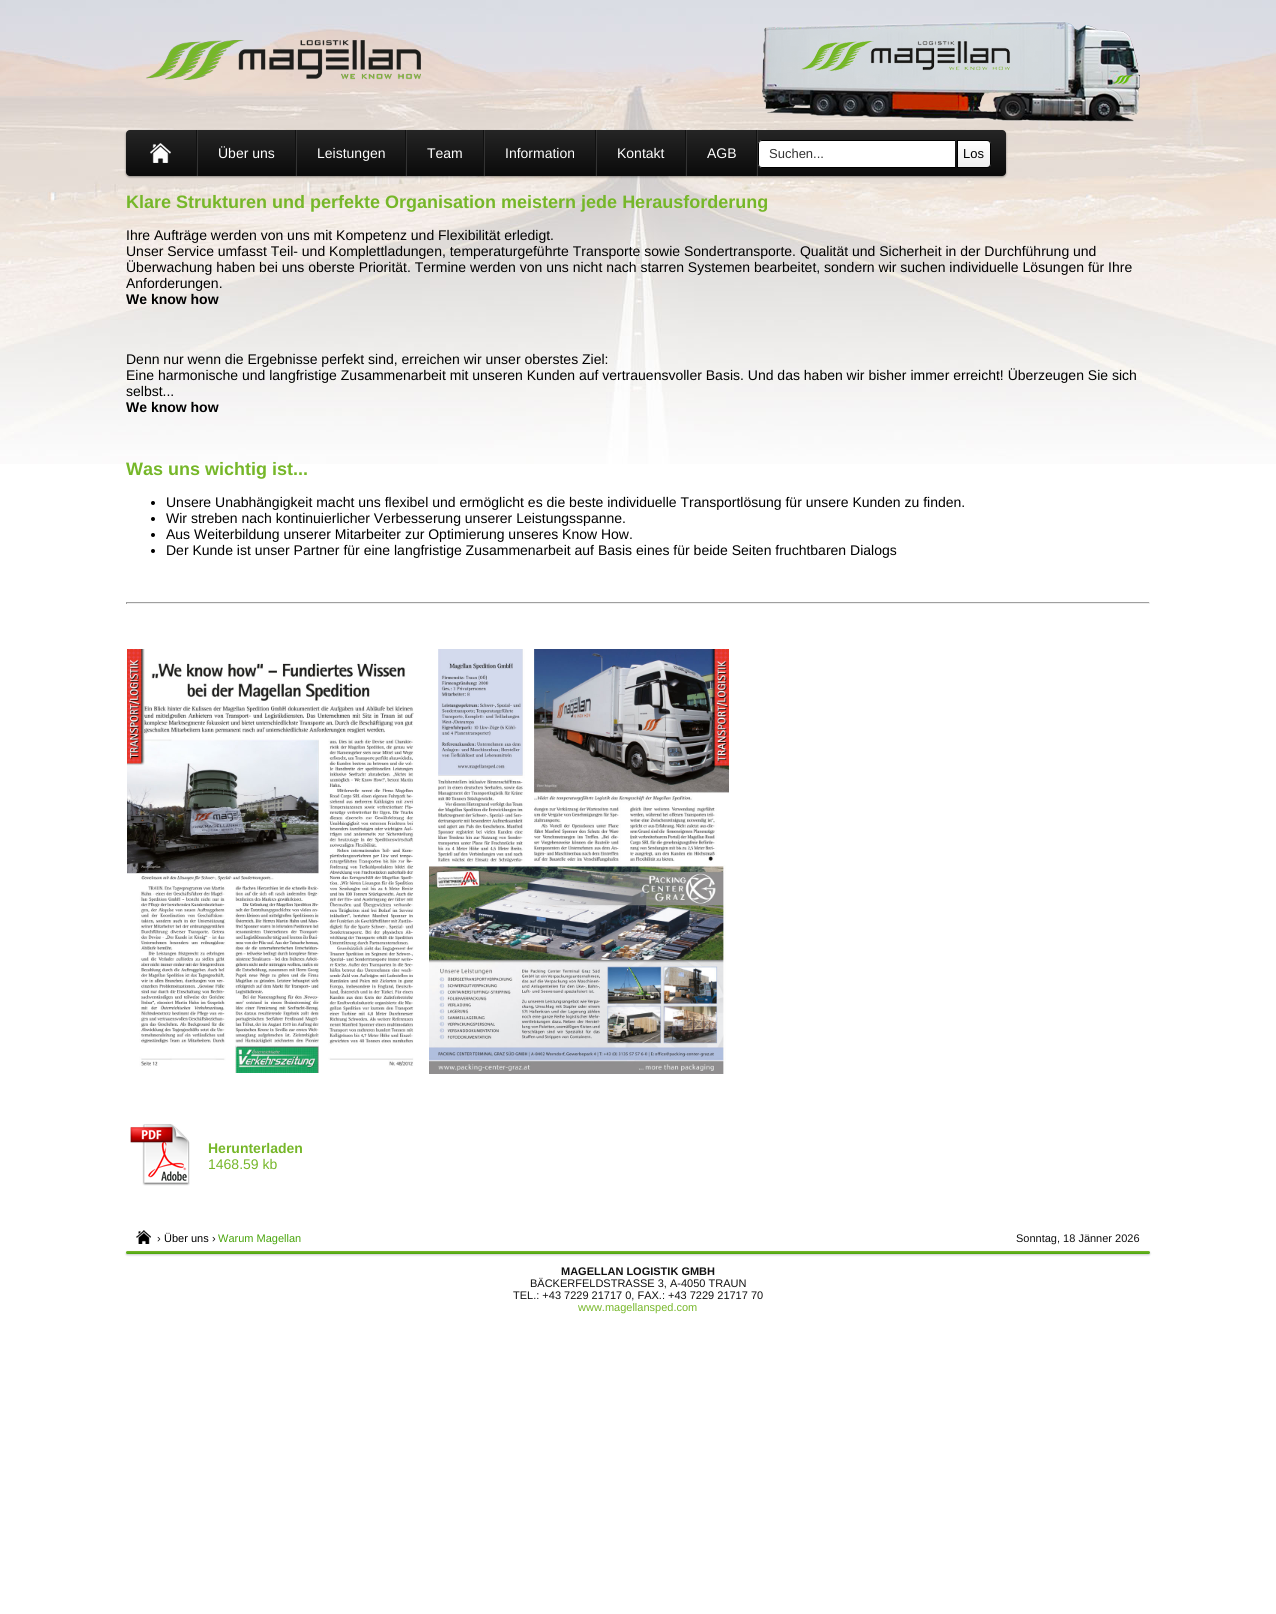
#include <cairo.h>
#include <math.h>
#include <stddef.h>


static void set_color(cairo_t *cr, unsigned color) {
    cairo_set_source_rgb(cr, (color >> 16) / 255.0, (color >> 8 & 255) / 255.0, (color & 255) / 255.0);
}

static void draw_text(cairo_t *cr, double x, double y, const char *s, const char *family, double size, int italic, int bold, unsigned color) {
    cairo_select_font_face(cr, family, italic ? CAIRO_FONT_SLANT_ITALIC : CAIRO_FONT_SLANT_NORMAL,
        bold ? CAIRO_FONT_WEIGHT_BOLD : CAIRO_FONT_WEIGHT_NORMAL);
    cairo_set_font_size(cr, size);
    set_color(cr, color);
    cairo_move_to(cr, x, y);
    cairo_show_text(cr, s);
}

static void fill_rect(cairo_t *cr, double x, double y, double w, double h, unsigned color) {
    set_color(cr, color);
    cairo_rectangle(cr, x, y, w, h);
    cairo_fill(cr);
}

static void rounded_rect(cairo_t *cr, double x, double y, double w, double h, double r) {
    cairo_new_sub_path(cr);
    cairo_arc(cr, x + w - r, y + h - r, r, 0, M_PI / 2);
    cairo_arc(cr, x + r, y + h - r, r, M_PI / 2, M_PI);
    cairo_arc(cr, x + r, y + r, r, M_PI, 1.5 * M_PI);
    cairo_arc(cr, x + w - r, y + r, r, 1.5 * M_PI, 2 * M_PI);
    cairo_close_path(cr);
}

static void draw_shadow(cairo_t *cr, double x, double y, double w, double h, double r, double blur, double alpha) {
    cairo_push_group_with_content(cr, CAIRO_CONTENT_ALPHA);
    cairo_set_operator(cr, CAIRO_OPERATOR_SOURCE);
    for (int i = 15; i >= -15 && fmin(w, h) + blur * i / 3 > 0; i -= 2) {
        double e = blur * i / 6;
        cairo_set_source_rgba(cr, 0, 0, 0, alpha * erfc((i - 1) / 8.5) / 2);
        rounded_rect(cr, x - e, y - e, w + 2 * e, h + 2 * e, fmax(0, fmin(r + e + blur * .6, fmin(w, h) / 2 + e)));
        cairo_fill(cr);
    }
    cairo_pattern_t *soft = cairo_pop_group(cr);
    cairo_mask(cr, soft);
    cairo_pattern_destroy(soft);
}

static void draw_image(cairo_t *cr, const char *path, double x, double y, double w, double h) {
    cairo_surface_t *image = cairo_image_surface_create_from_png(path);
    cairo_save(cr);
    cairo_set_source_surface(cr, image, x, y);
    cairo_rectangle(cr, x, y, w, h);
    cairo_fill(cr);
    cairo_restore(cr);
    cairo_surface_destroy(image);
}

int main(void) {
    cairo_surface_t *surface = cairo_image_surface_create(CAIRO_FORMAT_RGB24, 1276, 1614);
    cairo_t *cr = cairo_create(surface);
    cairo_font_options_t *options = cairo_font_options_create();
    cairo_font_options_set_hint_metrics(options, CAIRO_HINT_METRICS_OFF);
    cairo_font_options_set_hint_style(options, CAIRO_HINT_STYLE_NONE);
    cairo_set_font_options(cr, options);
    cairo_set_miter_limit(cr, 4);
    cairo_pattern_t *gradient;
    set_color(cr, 0xFFFFFF);
    cairo_paint(cr);
    draw_image(cr, "assets/img1.png", 0, 0, 1276, 464);
    draw_image(cr, "assets/img2.png", 146, 40, 275, 40);
    draw_image(cr, "assets/img3.png", 761, 21, 379, 101);
    set_color(cr, 0x000000);
    draw_shadow(cr, 126, 131, 880, 46, 4, 1, 0.4);
    gradient = cairo_pattern_create_linear(566, 130, 566, 176);
    cairo_pattern_add_color_stop_rgba(gradient, 0, 0.145, 0.145, 0.145, 1);
    cairo_pattern_add_color_stop_rgba(gradient, 1, 0.039, 0.039, 0.039, 1);
    cairo_set_source(cr, gradient);
    cairo_pattern_destroy(gradient);
    rounded_rect(cr, 126, 130, 880, 46, 4);
    cairo_fill(cr);
    draw_image(cr, "assets/img4.png", 150, 143, 21, 20);
    fill_rect(cr, 196, 130, 1, 46, 0x111111);
    fill_rect(cr, 295, 130, 1, 46, 0x111111);
    fill_rect(cr, 197, 130, 1, 46, 0x333333);
    draw_text(cr, 218, 158, "Über uns", "Liberation Sans", 14, 0, 0, 0xFFFFFF);
    fill_rect(cr, 405, 130, 1, 46, 0x111111);
    fill_rect(cr, 296, 130, 1, 46, 0x333333);
    draw_text(cr, 317, 158, "Leistungen", "Liberation Sans", 14, 0, 0, 0xFFFFFF);
    fill_rect(cr, 483, 130, 1, 46, 0x111111);
    fill_rect(cr, 406, 130, 1, 46, 0x333333);
    draw_text(cr, 427, 158, "Team", "Liberation Sans", 14, 0, 0, 0xFFFFFF);
    fill_rect(cr, 595, 130, 1, 46, 0x111111);
    fill_rect(cr, 484, 130, 1, 46, 0x333333);
    draw_text(cr, 505, 158, "Information", "Liberation Sans", 14, 0, 0, 0xFFFFFF);
    fill_rect(cr, 685, 130, 1, 46, 0x111111);
    fill_rect(cr, 596, 130, 1, 46, 0x333333);
    draw_text(cr, 617, 158, "Kontakt", "Liberation Sans", 14, 0, 0, 0xFFFFFF);
    fill_rect(cr, 756, 130, 1, 46, 0x111111);
    fill_rect(cr, 686, 130, 1, 46, 0x333333);
    draw_text(cr, 707, 158, "AGB", "Liberation Sans", 14, 0, 0, 0xFFFFFF);
    fill_rect(cr, 757, 130, 1, 46, 0x333333);
    set_color(cr, 0xFFFFFF);
    cairo_new_path(cr);
    cairo_move_to(cr, 762, 140);
    cairo_line_to(cr, 955, 140);
    cairo_line_to(cr, 955, 168);
    cairo_line_to(cr, 762, 168);
    cairo_curve_to(cr, 760, 168, 758, 166, 758, 164);
    cairo_line_to(cr, 758, 144);
    cairo_curve_to(cr, 758, 142, 760, 140, 762, 140);
    cairo_close_path(cr);
    cairo_fill(cr);
    set_color(cr, 0x000000);
    cairo_set_fill_rule(cr, CAIRO_FILL_RULE_EVEN_ODD);
    cairo_new_path(cr);
    cairo_move_to(cr, 762, 140);
    cairo_line_to(cr, 955, 140);
    cairo_line_to(cr, 955, 168);
    cairo_line_to(cr, 762, 168);
    cairo_curve_to(cr, 760, 168, 758, 166, 758, 164);
    cairo_line_to(cr, 758, 144);
    cairo_curve_to(cr, 758, 142, 760, 140, 762, 140);
    cairo_close_path(cr);
    cairo_move_to(cr, 762, 141);
    cairo_line_to(cr, 955, 141);
    cairo_line_to(cr, 955, 167);
    cairo_line_to(cr, 762, 167);
    cairo_curve_to(cr, 760, 167, 759, 166, 759, 164);
    cairo_line_to(cr, 759, 144);
    cairo_curve_to(cr, 759, 142, 760, 141, 762, 141);
    cairo_close_path(cr);
    cairo_fill(cr);
    draw_text(cr, 769, 158, "Suchen...", "Liberation Sans", 13, 0, 0, 0x333333);
    cairo_save(cr);
    cairo_set_fill_rule(cr, CAIRO_FILL_RULE_WINDING);
    cairo_new_path(cr);
    cairo_move_to(cr, 957, 140);
    cairo_line_to(cr, 987, 140);
    cairo_curve_to(cr, 989, 140, 991, 142, 991, 144);
    cairo_line_to(cr, 991, 164);
    cairo_curve_to(cr, 991, 166, 989, 168, 987, 168);
    cairo_line_to(cr, 957, 168);
    cairo_close_path(cr);
    cairo_clip(cr);
    gradient = cairo_pattern_create_linear(974, 141, 974, 167);
    cairo_pattern_add_color_stop_rgba(gradient, 0, 1, 1, 1, 1);
    cairo_pattern_add_color_stop_rgba(gradient, 1, 0.933, 0.933, 0.933, 1);
    cairo_set_source(cr, gradient);
    cairo_pattern_destroy(gradient);
    cairo_rectangle(cr, 958, 141, 33, 26);
    cairo_fill(cr);
    cairo_restore(cr);
    cairo_new_path(cr);
    cairo_move_to(cr, 957.5, 140.5);
    cairo_line_to(cr, 987, 140.5);
    cairo_curve_to(cr, 989, 140.5, 990.5, 142, 990.5, 144);
    cairo_line_to(cr, 990.5, 164);
    cairo_curve_to(cr, 990.5, 166, 989, 167.5, 987, 167.5);
    cairo_line_to(cr, 957.5, 167.5);
    cairo_close_path(cr);
    set_color(cr, 0x000000);
    cairo_set_line_width(cr, 1);
    cairo_stroke(cr);
    draw_text(cr, 963, 158, "Los", "Liberation Sans", 13, 0, 0, 0x000000);
    draw_text(cr, 126, 208, "Klare Strukturen und perfekte Organisation meistern jede Herausforderung", "Liberation Sans", 18, 0, 1, 0x76B729);
    draw_text(cr, 126, 240, "Ihre Aufträge werden von uns mit Kompetenz und Flexibilität erledigt.", "Liberation Sans", 14, 0, 0, 0x000000);
    draw_text(cr, 126, 256, "Unser Service umfasst Teil- und Komplettladungen, temperaturgeführte Transporte sowie Sondertransporte. Qualität und Sicherheit in der Durchführung und", "Liberation Sans", 14, 0, 0, 0x000000);
    draw_text(cr, 126, 272, "Überwachung haben bei uns oberste Priorität. Termine werden von uns nicht nach starren Systemen bearbeitet, sondern wir suchen individuelle Lösungen für Ihre", "Liberation Sans", 14, 0, 0, 0x000000);
    draw_text(cr, 126, 288, "Anforderungen.", "Liberation Sans", 14, 0, 0, 0x000000);
    draw_text(cr, 126, 304, "We know how", "Liberation Sans", 14, 0, 1, 0x000000);
    draw_text(cr, 126, 364, "Denn nur wenn die Ergebnisse perfekt sind, erreichen wir unser oberstes Ziel:", "Liberation Sans", 14, 0, 0, 0x000000);
    draw_text(cr, 126, 380, "Eine harmonische und langfristige Zusammenarbeit mit unseren Kunden auf vertrauensvoller Basis. Und das haben wir bisher immer erreicht! Überzeugen Sie sich", "Liberation Sans", 14, 0, 0, 0x000000);
    draw_text(cr, 126, 396, "selbst...", "Liberation Sans", 14, 0, 0, 0x000000);
    draw_text(cr, 126, 412, "We know how", "Liberation Sans", 14, 0, 1, 0x000000);
    draw_text(cr, 126, 475, "Was uns wichtig ist...", "Liberation Sans", 18, 0, 1, 0x76B729);
    set_color(cr, 0x000000);
    cairo_new_path(cr);
    cairo_arc(cr, 153, 503, 2, 0, 2 * M_PI);
    cairo_fill(cr);
    draw_text(cr, 166, 507, "Unsere Unabhängigkeit macht uns flexibel und ermöglicht es die beste individuelle Transportlösung für unsere Kunden zu finden.", "Liberation Sans", 14, 0, 0, 0x000000);
    cairo_new_path(cr);
    cairo_arc(cr, 153, 519, 2, 0, 2 * M_PI);
    cairo_fill(cr);
    draw_text(cr, 166, 523, "Wir streben nach kontinuierlicher Verbesserung unserer Leistungsspanne.", "Liberation Sans", 14, 0, 0, 0x000000);
    cairo_new_path(cr);
    cairo_arc(cr, 153, 535, 2, 0, 2 * M_PI);
    cairo_fill(cr);
    draw_text(cr, 166, 539, "Aus Weiterbildung unserer Mitarbeiter zur Optimierung unseres Know How.", "Liberation Sans", 14, 0, 0, 0x000000);
    cairo_new_path(cr);
    cairo_arc(cr, 153, 551, 2, 0, 2 * M_PI);
    cairo_fill(cr);
    draw_text(cr, 166, 555, "Der Kunde ist unser Partner für eine langfristige Zusammenarbeit auf Basis eines für beide Seiten fruchtbaren Dialogs", "Liberation Sans", 14, 0, 0, 0x000000);
    fill_rect(cr, 126, 602, 1024, 1, 0x9F9F9F);
    fill_rect(cr, 1149, 602, 1, 2, 0xEEEEEE);
    fill_rect(cr, 126, 603, 1024, 1, 0xEEEEEE);
    fill_rect(cr, 126, 602, 1, 2, 0x9F9F9F);
    draw_image(cr, "assets/img5.png", 127, 649, 287, 424);
    draw_image(cr, "assets/img6.png", 429, 649, 300, 425);
    draw_image(cr, "assets/img7.png", 130, 1124, 60, 62);
    draw_text(cr, 208, 1153, "Herunterladen", "Liberation Sans", 14, 0, 1, 0x76B729);
    draw_text(cr, 208, 1169, "1468.59 kb", "Liberation Sans", 14, 0, 0, 0x76B729);
    draw_image(cr, "assets/img8.png", 136, 1230, 15, 14);
    draw_text(cr, 157, 1242, "›", "Liberation Sans", 11, 0, 0, 0x111111);
    draw_text(cr, 164, 1242, "Über uns", "Liberation Sans", 11, 0, 0, 0x000000);
    draw_text(cr, 212, 1242, "›", "Liberation Sans", 11, 0, 0, 0x111111);
    draw_text(cr, 218, 1242, "Warum Magellan", "Liberation Sans", 11, 0, 0, 0x49A50C);
    draw_text(cr, 1016, 1242, "Sonntag, 18 Jänner 2026", "Liberation Sans", 11, 0, 0, 0x111111);
    set_color(cr, 0x000000);
    draw_shadow(cr, 126, 1252, 1024, 3, 1.5, 1, 0.2);
    gradient = cairo_pattern_create_linear(638, 1251, 638, 1254);
    cairo_pattern_add_color_stop_rgba(gradient, 0, 0.463, 0.718, 0.161, 1);
    cairo_pattern_add_color_stop_rgba(gradient, 1, 0.286, 0.647, 0.047, 1);
    cairo_set_source(cr, gradient);
    cairo_pattern_destroy(gradient);
    rounded_rect(cr, 126, 1251, 1024, 3, 1.5);
    cairo_fill(cr);
    draw_text(cr, 561, 1275, "MAGELLAN LOGISTIK GMBH", "Liberation Sans", 11, 0, 1, 0x111111);
    draw_text(cr, 530, 1287, "BÄCKERFELDSTRASSE 3, A-4050 TRAUN", "Liberation Sans", 11, 0, 0, 0x111111);
    draw_text(cr, 513, 1299, "TEL.: +43 7229 21717 0, FAX.: +43 7229 21717 70", "Liberation Sans", 11, 0, 0, 0x111111);
    draw_text(cr, 578, 1311, "www.magellansped.com", "Liberation Sans", 11, 0, 0, 0x76B729);
    cairo_surface_write_to_png(surface, "output.png");
    cairo_font_options_destroy(options);
    cairo_destroy(cr);
    cairo_surface_destroy(surface);
    return 0;
}
